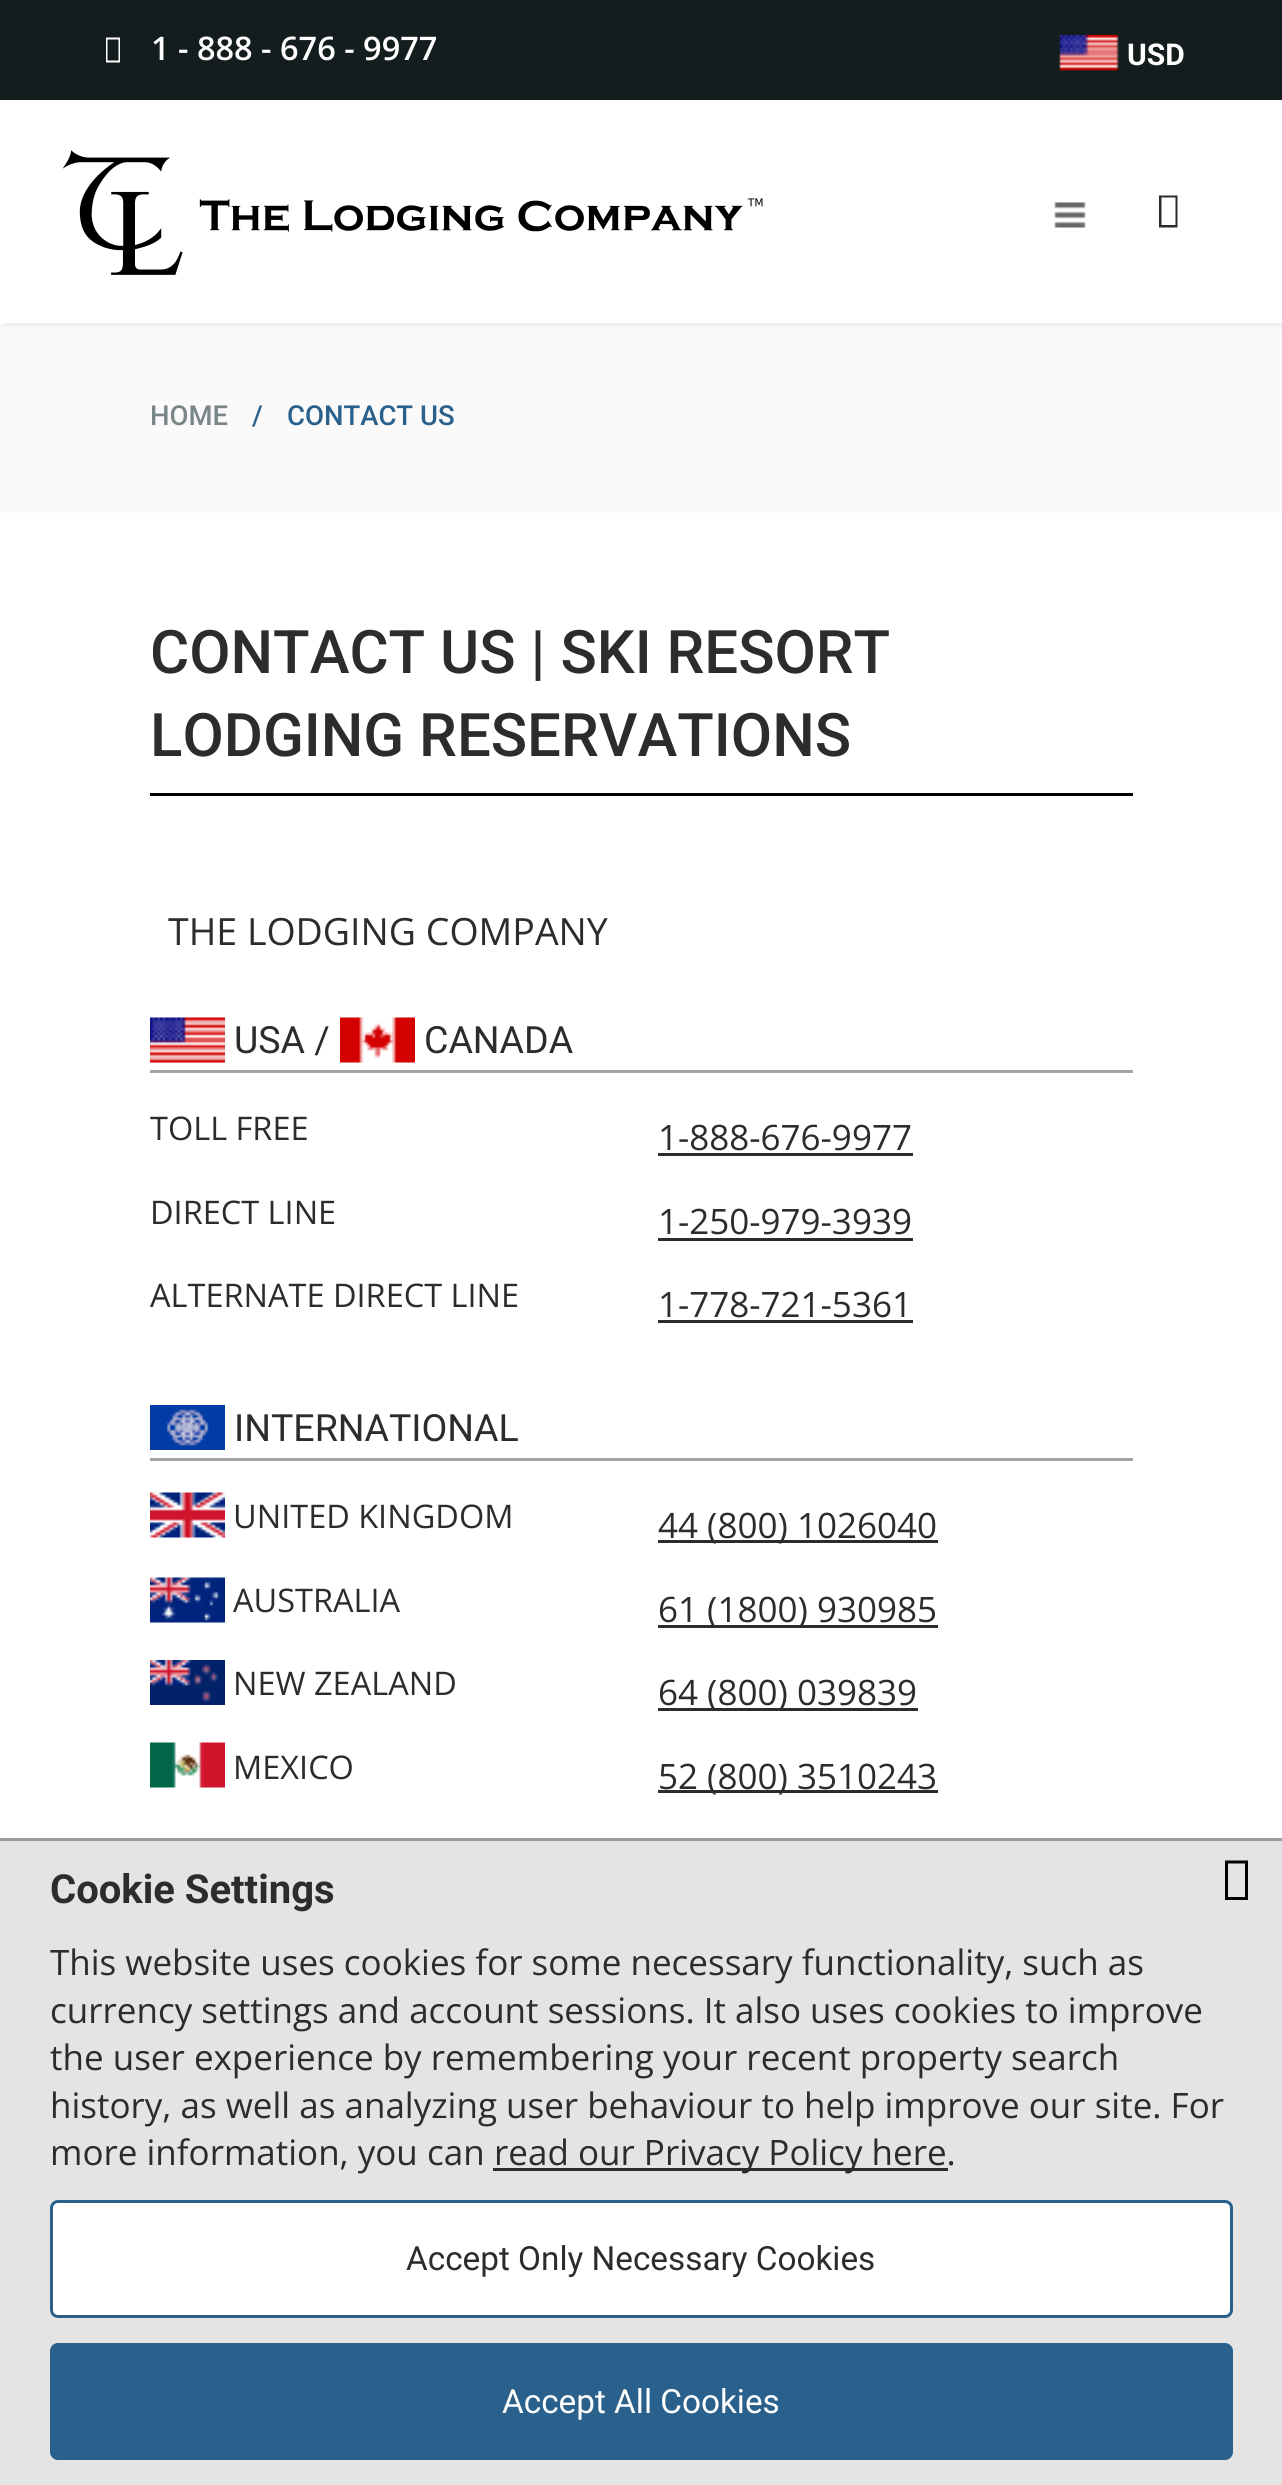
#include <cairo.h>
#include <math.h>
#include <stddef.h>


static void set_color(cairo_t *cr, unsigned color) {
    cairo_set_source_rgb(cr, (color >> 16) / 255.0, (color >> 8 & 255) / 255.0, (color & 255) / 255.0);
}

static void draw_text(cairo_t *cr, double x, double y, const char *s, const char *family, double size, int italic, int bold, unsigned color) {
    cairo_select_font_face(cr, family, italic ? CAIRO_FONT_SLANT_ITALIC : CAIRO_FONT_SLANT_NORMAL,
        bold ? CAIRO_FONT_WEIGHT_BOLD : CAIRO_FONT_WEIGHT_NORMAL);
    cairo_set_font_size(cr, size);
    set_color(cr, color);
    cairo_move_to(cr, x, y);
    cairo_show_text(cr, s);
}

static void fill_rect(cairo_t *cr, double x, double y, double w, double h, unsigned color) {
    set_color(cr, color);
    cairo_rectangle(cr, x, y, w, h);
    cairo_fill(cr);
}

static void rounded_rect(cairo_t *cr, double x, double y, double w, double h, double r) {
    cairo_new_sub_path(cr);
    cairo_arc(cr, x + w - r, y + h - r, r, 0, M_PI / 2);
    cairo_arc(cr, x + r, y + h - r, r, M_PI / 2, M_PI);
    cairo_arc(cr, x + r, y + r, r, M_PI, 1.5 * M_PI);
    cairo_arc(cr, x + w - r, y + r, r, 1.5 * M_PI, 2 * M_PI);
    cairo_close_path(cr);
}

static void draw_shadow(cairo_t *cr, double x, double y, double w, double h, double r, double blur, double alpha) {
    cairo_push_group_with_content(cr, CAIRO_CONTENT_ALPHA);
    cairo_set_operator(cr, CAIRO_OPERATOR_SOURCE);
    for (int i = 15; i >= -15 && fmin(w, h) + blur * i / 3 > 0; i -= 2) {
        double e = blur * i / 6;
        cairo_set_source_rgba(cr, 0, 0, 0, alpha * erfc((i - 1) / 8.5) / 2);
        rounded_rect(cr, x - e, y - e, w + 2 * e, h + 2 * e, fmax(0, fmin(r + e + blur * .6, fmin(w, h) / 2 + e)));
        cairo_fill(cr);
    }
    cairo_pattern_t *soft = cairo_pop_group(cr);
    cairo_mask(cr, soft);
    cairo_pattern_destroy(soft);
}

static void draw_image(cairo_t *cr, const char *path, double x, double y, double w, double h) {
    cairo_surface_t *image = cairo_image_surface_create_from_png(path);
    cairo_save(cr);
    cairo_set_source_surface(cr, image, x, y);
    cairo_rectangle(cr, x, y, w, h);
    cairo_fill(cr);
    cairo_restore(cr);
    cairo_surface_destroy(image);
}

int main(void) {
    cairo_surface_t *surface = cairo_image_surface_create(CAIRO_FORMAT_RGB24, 1282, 2485);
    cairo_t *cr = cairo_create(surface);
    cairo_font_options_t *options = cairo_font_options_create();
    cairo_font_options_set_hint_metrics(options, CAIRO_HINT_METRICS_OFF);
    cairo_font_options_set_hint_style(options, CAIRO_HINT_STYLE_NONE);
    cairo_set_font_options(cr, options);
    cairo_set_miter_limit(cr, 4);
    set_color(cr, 0xFFFFFF);
    cairo_paint(cr);
    fill_rect(cr, 0, 0, 1282, 100, 0x141D1E);
    set_color(cr, 0xFFFFFF);
    cairo_new_path(cr);
    cairo_move_to(cr, 106, 62.5);
    cairo_line_to(cr, 106, 37.5);
    cairo_line_to(cr, 120, 37.5);
    cairo_line_to(cr, 120, 62.5);
    cairo_close_path(cr);
    cairo_move_to(cr, 107.5, 60.5);
    cairo_line_to(cr, 118.5, 60.5);
    cairo_line_to(cr, 118.5, 39.5);
    cairo_line_to(cr, 107.5, 39.5);
    cairo_close_path(cr);
    cairo_fill(cr);
    draw_text(cr, 151, 60, "1 - 888 - 676 - 9977", "Open Sans SemiBold", 32.5, 0, 0, 0xFFFFFF);
    draw_image(cr, "assets/img1.png", 1059, 35, 60, 36);
    draw_text(cr, 1127, 65, "USD", "Roboto", 30, 0, 1, 0xFFFFFF);
    fill_rect(cr, 0, 325, 1282, 188, 0xFAFAFA);
    set_color(cr, 0x323232);
    draw_shadow(cr, 3, 103, 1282, 222, 0, 2.5, 0.11);
    fill_rect(cr, 0, 100, 1282, 223, 0xFFFFFF);
    draw_image(cr, "assets/img2.png", 63, 150, 700, 125);
    draw_image(cr, "assets/img3.png", 1054, 202, 32, 26);
    set_color(cr, 0x2C2C2C);
    cairo_new_path(cr);
    cairo_move_to(cr, 1159, 227.5);
    cairo_line_to(cr, 1159, 195.5);
    cairo_line_to(cr, 1177.5, 195.5);
    cairo_line_to(cr, 1177.5, 227.5);
    cairo_close_path(cr);
    cairo_move_to(cr, 1161.5, 225);
    cairo_line_to(cr, 1175.5, 225);
    cairo_line_to(cr, 1175.5, 197.5);
    cairo_line_to(cr, 1161.5, 197.5);
    cairo_close_path(cr);
    cairo_fill(cr);
    draw_text(cr, 150, 425, "HOME", "Roboto Medium", 27.5, 0, 0, 0x788687);
    draw_text(cr, 252, 425, "/", "Roboto Medium", 27.5, 0, 0, 0x29618C);
    draw_text(cr, 287, 425, "CONTACT US", "Roboto Medium", 27.5, 0, 0, 0x29618C);
    fill_rect(cr, 150, 793, 983, 3, 0x000000);
    draw_text(cr, 150, 673, "CONTACT US | SKI RESORT", "Roboto Medium", 60, 0, 0, 0x2C2C2C);
    draw_text(cr, 150, 756, "LODGING RESERVATIONS", "Roboto Medium", 60, 0, 0, 0x2C2C2C);
    draw_text(cr, 168, 945, "THE LODGING COMPANY", "Open Sans", 37.5, 0, 0, 0x2C2C2C);
    fill_rect(cr, 150, 1070, 983, 3, 0xA4A4A4);
    draw_image(cr, "assets/img4.png", 150, 1017, 75, 46);
    draw_text(cr, 234, 1053, "USA /", "Roboto", 37.5, 0, 0, 0x2C2C2C);
    draw_image(cr, "assets/img5.png", 340, 1017, 75, 46);
    draw_text(cr, 424, 1053, "CANADA", "Roboto", 37.5, 0, 0, 0x2C2C2C);
    draw_text(cr, 150, 1140, "TOLL FREE", "Open Sans", 32.5, 0, 0, 0x2C2C2C);
    draw_text(cr, 658, 1150, "1-888-676-9977", "Open Sans", 35, 0, 0, 0x2C2C2C);
    fill_rect(cr, 658, 1153, 255, 3, 0x2C2C2C);
    draw_text(cr, 150, 1224, "DIRECT LINE", "Open Sans", 32.5, 0, 0, 0x2C2C2C);
    draw_text(cr, 658, 1234, "1-250-979-3939", "Open Sans", 35, 0, 0, 0x2C2C2C);
    fill_rect(cr, 658, 1238, 255, 3, 0x2C2C2C);
    draw_text(cr, 150, 1307, "ALTERNATE DIRECT LINE", "Open Sans", 32.5, 0, 0, 0x2C2C2C);
    draw_text(cr, 658, 1317, "1-778-721-5361", "Open Sans", 35, 0, 0, 0x2C2C2C);
    fill_rect(cr, 658, 1320, 255, 3, 0x2C2C2C);
    fill_rect(cr, 150, 1458, 983, 3, 0xA4A4A4);
    draw_image(cr, "assets/img6.png", 150, 1405, 75, 45);
    draw_text(cr, 234, 1441, "INTERNATIONAL", "Roboto", 37.5, 0, 0, 0x2C2C2C);
    draw_image(cr, "assets/img7.png", 150, 1492, 75, 46);
    draw_text(cr, 233, 1528, "UNITED KINGDOM", "Open Sans", 32.5, 0, 0, 0x2C2C2C);
    fill_rect(cr, 658, 1540, 280, 3, 0x2C2C2C);
    draw_text(cr, 658, 1538, "44 (800) 1026040", "Open Sans", 35, 0, 0, 0x2C2C2C);
    draw_image(cr, "assets/img8.png", 150, 1577, 75, 46);
    draw_text(cr, 233, 1612, "AUSTRALIA", "Open Sans", 32.5, 0, 0, 0x2C2C2C);
    fill_rect(cr, 658, 1625, 280, 3, 0x2C2C2C);
    draw_text(cr, 658, 1622, "61 (1800) 930985", "Open Sans", 35, 0, 0, 0x2C2C2C);
    draw_image(cr, "assets/img9.png", 150, 1660, 75, 45);
    draw_text(cr, 233, 1695, "NEW ZEALAND", "Open Sans", 32.5, 0, 0, 0x2C2C2C);
    fill_rect(cr, 658, 1708, 260, 3, 0x2C2C2C);
    draw_text(cr, 658, 1705, "64 (800) 039839", "Open Sans", 35, 0, 0, 0x2C2C2C);
    draw_image(cr, "assets/img10.png", 150, 1742, 75, 46);
    draw_text(cr, 233, 1779, "MEXICO", "Open Sans", 32.5, 0, 0, 0x2C2C2C);
    fill_rect(cr, 658, 1790, 280, 3, 0x2C2C2C);
    draw_text(cr, 658, 1789, "52 (800) 3510243", "Open Sans", 35, 0, 0, 0x2C2C2C);
    fill_rect(cr, 0, 1841, 1282, 644, 0xE4E4E4);
    fill_rect(cr, 0, 1838, 1282, 3, 0x9C9C9C);
    draw_text(cr, 50, 1903, "Cookie Settings", "Roboto", 40, 0, 1, 0x2C2C2C);
    draw_text(cr, 50, 1975, "This website uses cookies for some necessary functionality, such as", "Open Sans", 35, 0, 0, 0x2C2C2C);
    draw_text(cr, 50, 2023, "currency settings and account sessions. It also uses cookies to improve", "Open Sans", 35, 0, 0, 0x2C2C2C);
    draw_text(cr, 50, 2070, "the user experience by remembering your recent property search", "Open Sans", 35, 0, 0, 0x2C2C2C);
    draw_text(cr, 50, 2118, "history, as well as analyzing user behaviour to help improve our site. For", "Open Sans", 35, 0, 0, 0x2C2C2C);
    draw_text(cr, 50, 2165, "more information, you can", "Open Sans", 35, 0, 0, 0x2C2C2C);
    fill_rect(cr, 493, 2168, 455, 3, 0x2C2C2C);
    draw_text(cr, 494, 2165, "read our Privacy Policy here.", "Open Sans", 35, 0, 0, 0x2C2C2C);
    set_color(cr, 0x000000);
    cairo_new_path(cr);
    cairo_move_to(cr, 1225, 1900);
    cairo_line_to(cr, 1225, 1860.5);
    cairo_line_to(cr, 1248, 1860.5);
    cairo_line_to(cr, 1248, 1900);
    cairo_close_path(cr);
    cairo_move_to(cr, 1228, 1897);
    cairo_line_to(cr, 1245, 1897);
    cairo_line_to(cr, 1245, 1863.5);
    cairo_line_to(cr, 1228, 1863.5);
    cairo_close_path(cr);
    cairo_fill(cr);
    set_color(cr, 0xFFFFFF);
    rounded_rect(cr, 51.5, 2201.5, 1180, 115, 6.5);
    cairo_fill_preserve(cr);
    set_color(cr, 0x29618C);
    cairo_set_line_width(cr, 3);
    cairo_stroke(cr);
    draw_text(cr, 406, 2270, "Accept Only Necessary Cookies", "Roboto", 33.3, 0, 0, 0x2C2C2C);
    set_color(cr, 0x29618C);
    rounded_rect(cr, 51.5, 2344.5, 1180, 114, 6.5);
    cairo_fill_preserve(cr);
    cairo_stroke(cr);
    draw_text(cr, 502, 2413, "Accept All Cookies", "Roboto", 33.3, 0, 0, 0xFFFFFF);
    cairo_surface_write_to_png(surface, "output.png");
    cairo_font_options_destroy(options);
    cairo_destroy(cr);
    cairo_surface_destroy(surface);
    return 0;
}
